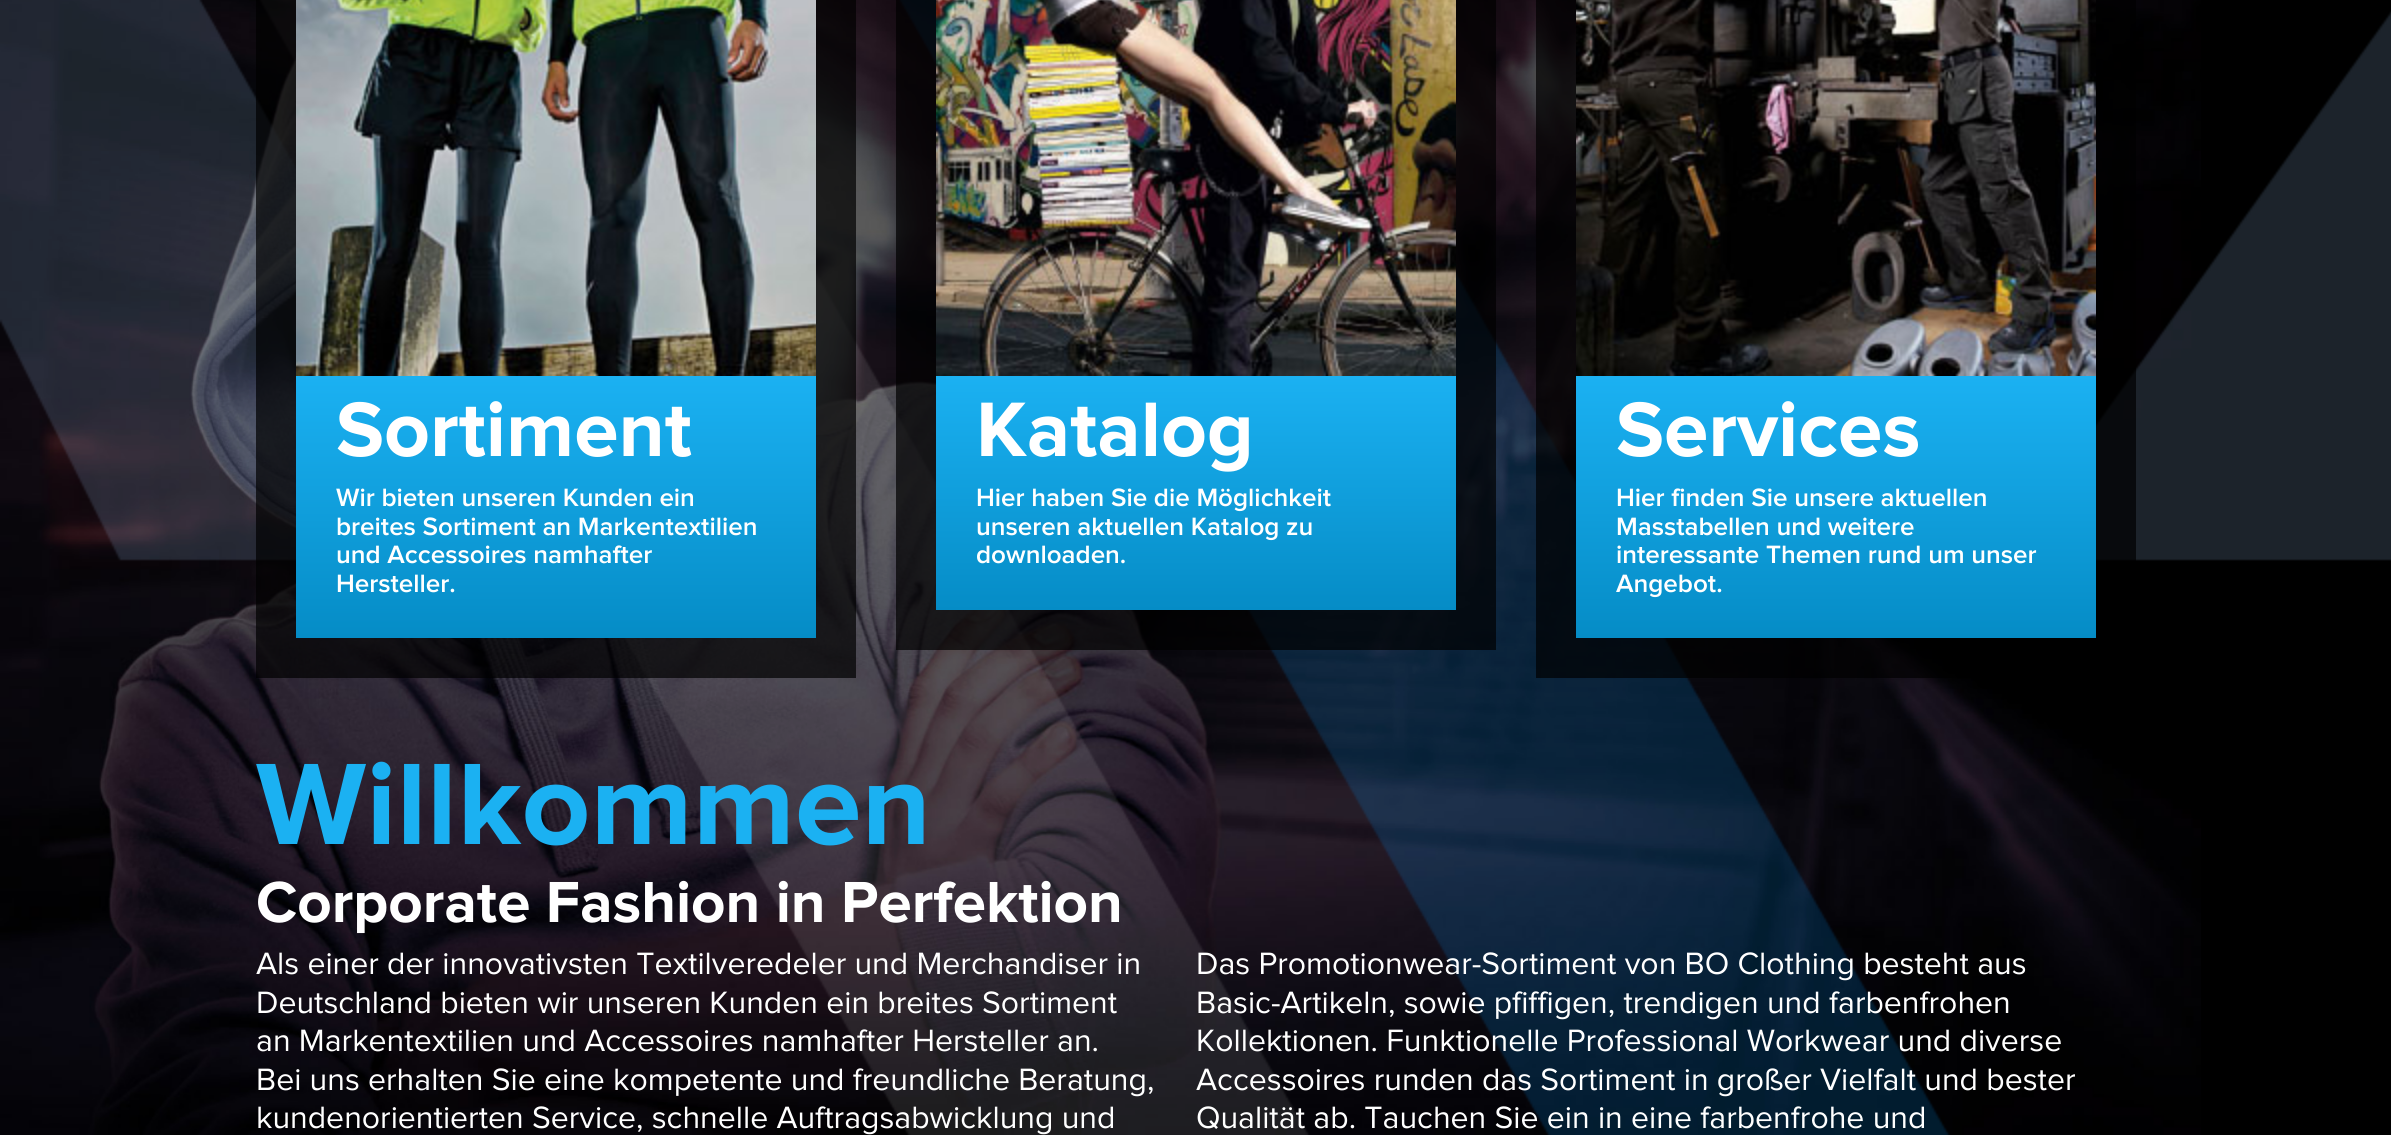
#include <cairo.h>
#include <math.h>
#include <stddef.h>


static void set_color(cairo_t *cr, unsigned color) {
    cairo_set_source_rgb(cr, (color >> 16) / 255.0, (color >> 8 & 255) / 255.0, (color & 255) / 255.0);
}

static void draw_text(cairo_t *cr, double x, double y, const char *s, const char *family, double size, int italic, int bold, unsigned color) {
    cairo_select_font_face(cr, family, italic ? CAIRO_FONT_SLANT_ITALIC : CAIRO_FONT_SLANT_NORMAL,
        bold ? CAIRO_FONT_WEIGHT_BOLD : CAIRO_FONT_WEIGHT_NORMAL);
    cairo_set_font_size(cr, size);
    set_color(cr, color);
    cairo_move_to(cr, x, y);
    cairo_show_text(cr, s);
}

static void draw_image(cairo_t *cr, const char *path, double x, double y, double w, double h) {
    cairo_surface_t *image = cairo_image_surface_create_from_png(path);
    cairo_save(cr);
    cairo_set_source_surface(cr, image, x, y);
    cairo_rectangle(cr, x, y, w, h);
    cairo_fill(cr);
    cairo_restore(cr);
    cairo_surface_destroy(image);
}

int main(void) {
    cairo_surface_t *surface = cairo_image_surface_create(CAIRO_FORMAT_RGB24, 2391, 1135);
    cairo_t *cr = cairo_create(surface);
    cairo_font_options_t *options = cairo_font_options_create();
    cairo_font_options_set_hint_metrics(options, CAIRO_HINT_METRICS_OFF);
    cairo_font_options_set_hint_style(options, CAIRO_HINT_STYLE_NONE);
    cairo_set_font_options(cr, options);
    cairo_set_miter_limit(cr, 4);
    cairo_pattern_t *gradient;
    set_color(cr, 0x000000);
    cairo_paint(cr);
    draw_image(cr, "assets/img1.png", 0, 0, 2201, 1135);
    draw_image(cr, "assets/img2.png", 0, 0, 2391, 1135);
    cairo_set_source_rgba(cr, 0, 0, 0, 0.7);
    cairo_rectangle(cr, 256, 0, 600, 678);
    cairo_fill(cr);
    draw_image(cr, "assets/img3.png", 296, 0, 520, 376);
    gradient = cairo_pattern_create_linear(296, 376, 296, 638);
    cairo_pattern_add_color_stop_rgba(gradient, 0, 0.106, 0.694, 0.949, 1);
    cairo_pattern_add_color_stop_rgba(gradient, 1, 0.02, 0.549, 0.776, 1);
    cairo_set_source(cr, gradient);
    cairo_pattern_destroy(gradient);
    cairo_rectangle(cr, 296, 376, 520, 262);
    cairo_fill(cr);
    draw_text(cr, 336, 456, "Sortiment", "Proxima Nova", 80, 0, 1, 0xFFFFFF);
    draw_text(cr, 336, 506, "Wir bieten unseren Kunden ein", "Proxima Nova SemiBold", 26, 0, 0, 0xFFFFFF);
    draw_text(cr, 336, 535, "breites Sortiment an Markentextilien", "Proxima Nova SemiBold", 26, 0, 0, 0xFFFFFF);
    draw_text(cr, 336, 563, "und Accessoires namhafter", "Proxima Nova SemiBold", 26, 0, 0, 0xFFFFFF);
    draw_text(cr, 336, 592, "Hersteller.", "Proxima Nova SemiBold", 26, 0, 0, 0xFFFFFF);
    cairo_set_source_rgba(cr, 0, 0, 0, 0.7);
    cairo_rectangle(cr, 896, 0, 600, 650);
    cairo_fill(cr);
    draw_image(cr, "assets/img4.png", 936, 0, 520, 376);
    gradient = cairo_pattern_create_linear(936, 376, 936, 610);
    cairo_pattern_add_color_stop_rgba(gradient, 0, 0.106, 0.694, 0.949, 1);
    cairo_pattern_add_color_stop_rgba(gradient, 1, 0.02, 0.549, 0.776, 1);
    cairo_set_source(cr, gradient);
    cairo_pattern_destroy(gradient);
    cairo_rectangle(cr, 936, 376, 520, 234);
    cairo_fill(cr);
    draw_text(cr, 976, 456, "Katalog", "Proxima Nova", 80, 0, 1, 0xFFFFFF);
    draw_text(cr, 976, 506, "Hier haben Sie die Möglichkeit", "Proxima Nova SemiBold", 26, 0, 0, 0xFFFFFF);
    draw_text(cr, 976, 535, "unseren aktuellen Katalog zu", "Proxima Nova SemiBold", 26, 0, 0, 0xFFFFFF);
    draw_text(cr, 976, 563, "downloaden.", "Proxima Nova SemiBold", 26, 0, 0, 0xFFFFFF);
    cairo_set_source_rgba(cr, 0, 0, 0, 0.7);
    cairo_rectangle(cr, 1536, 0, 600, 678);
    cairo_fill(cr);
    draw_image(cr, "assets/img5.png", 1576, 0, 520, 376);
    gradient = cairo_pattern_create_linear(1576, 376, 1576, 638);
    cairo_pattern_add_color_stop_rgba(gradient, 0, 0.106, 0.694, 0.949, 1);
    cairo_pattern_add_color_stop_rgba(gradient, 1, 0.02, 0.549, 0.776, 1);
    cairo_set_source(cr, gradient);
    cairo_pattern_destroy(gradient);
    cairo_rectangle(cr, 1576, 376, 520, 262);
    cairo_fill(cr);
    draw_text(cr, 1616, 456, "Services", "Proxima Nova", 80, 0, 1, 0xFFFFFF);
    draw_text(cr, 1616, 506, "Hier finden Sie unsere aktuellen", "Proxima Nova SemiBold", 26, 0, 0, 0xFFFFFF);
    draw_text(cr, 1616, 535, "Masstabellen und weitere", "Proxima Nova SemiBold", 26, 0, 0, 0xFFFFFF);
    draw_text(cr, 1616, 563, "interessante Themen rund um unser", "Proxima Nova SemiBold", 26, 0, 0, 0xFFFFFF);
    draw_text(cr, 1616, 592, "Angebot.", "Proxima Nova SemiBold", 26, 0, 0, 0xFFFFFF);
    draw_text(cr, 256, 844, "Willkommen", "Proxima Nova", 120, 0, 1, 0x1BB1F2);
    draw_text(cr, 256, 922, "Corporate Fashion in Perfektion", "Proxima Nova", 60, 0, 1, 0xFFFFFF);
    draw_text(cr, 256, 974, "Als einer der innovativsten Textilveredeler und Merchandiser in", "Proxima Nova", 32, 0, 0, 0xFFFFFF);
    draw_text(cr, 256, 1013, "Deutschland bieten wir unseren Kunden ein breites Sortiment", "Proxima Nova", 32, 0, 0, 0xFFFFFF);
    draw_text(cr, 256, 1051, "an Markentextilien und Accessoires namhafter Hersteller an.", "Proxima Nova", 32, 0, 0, 0xFFFFFF);
    draw_text(cr, 256, 1090, "Bei uns erhalten Sie eine kompetente und freundliche Beratung,", "Proxima Nova", 32, 0, 0, 0xFFFFFF);
    draw_text(cr, 256, 1128, "kundenorientierten Service, schnelle Auftragsabwicklung und", "Proxima Nova", 32, 0, 0, 0xFFFFFF);
    draw_text(cr, 1196, 974, "Das Promotionwear-Sortiment von BO Clothing besteht aus", "Proxima Nova", 32, 0, 0, 0xFFFFFF);
    draw_text(cr, 1196, 1013, "Basic-Artikeln, sowie pfiffigen, trendigen und farbenfrohen", "Proxima Nova", 32, 0, 0, 0xFFFFFF);
    draw_text(cr, 1196, 1051, "Kollektionen. Funktionelle Professional Workwear und diverse", "Proxima Nova", 32, 0, 0, 0xFFFFFF);
    draw_text(cr, 1196, 1090, "Accessoires runden das Sortiment in großer Vielfalt und bester", "Proxima Nova", 32, 0, 0, 0xFFFFFF);
    draw_text(cr, 1196, 1128, "Qualität ab. Tauchen Sie ein in eine farbenfrohe und", "Proxima Nova", 32, 0, 0, 0xFFFFFF);
    cairo_surface_write_to_png(surface, "output.png");
    cairo_font_options_destroy(options);
    cairo_destroy(cr);
    cairo_surface_destroy(surface);
    return 0;
}
